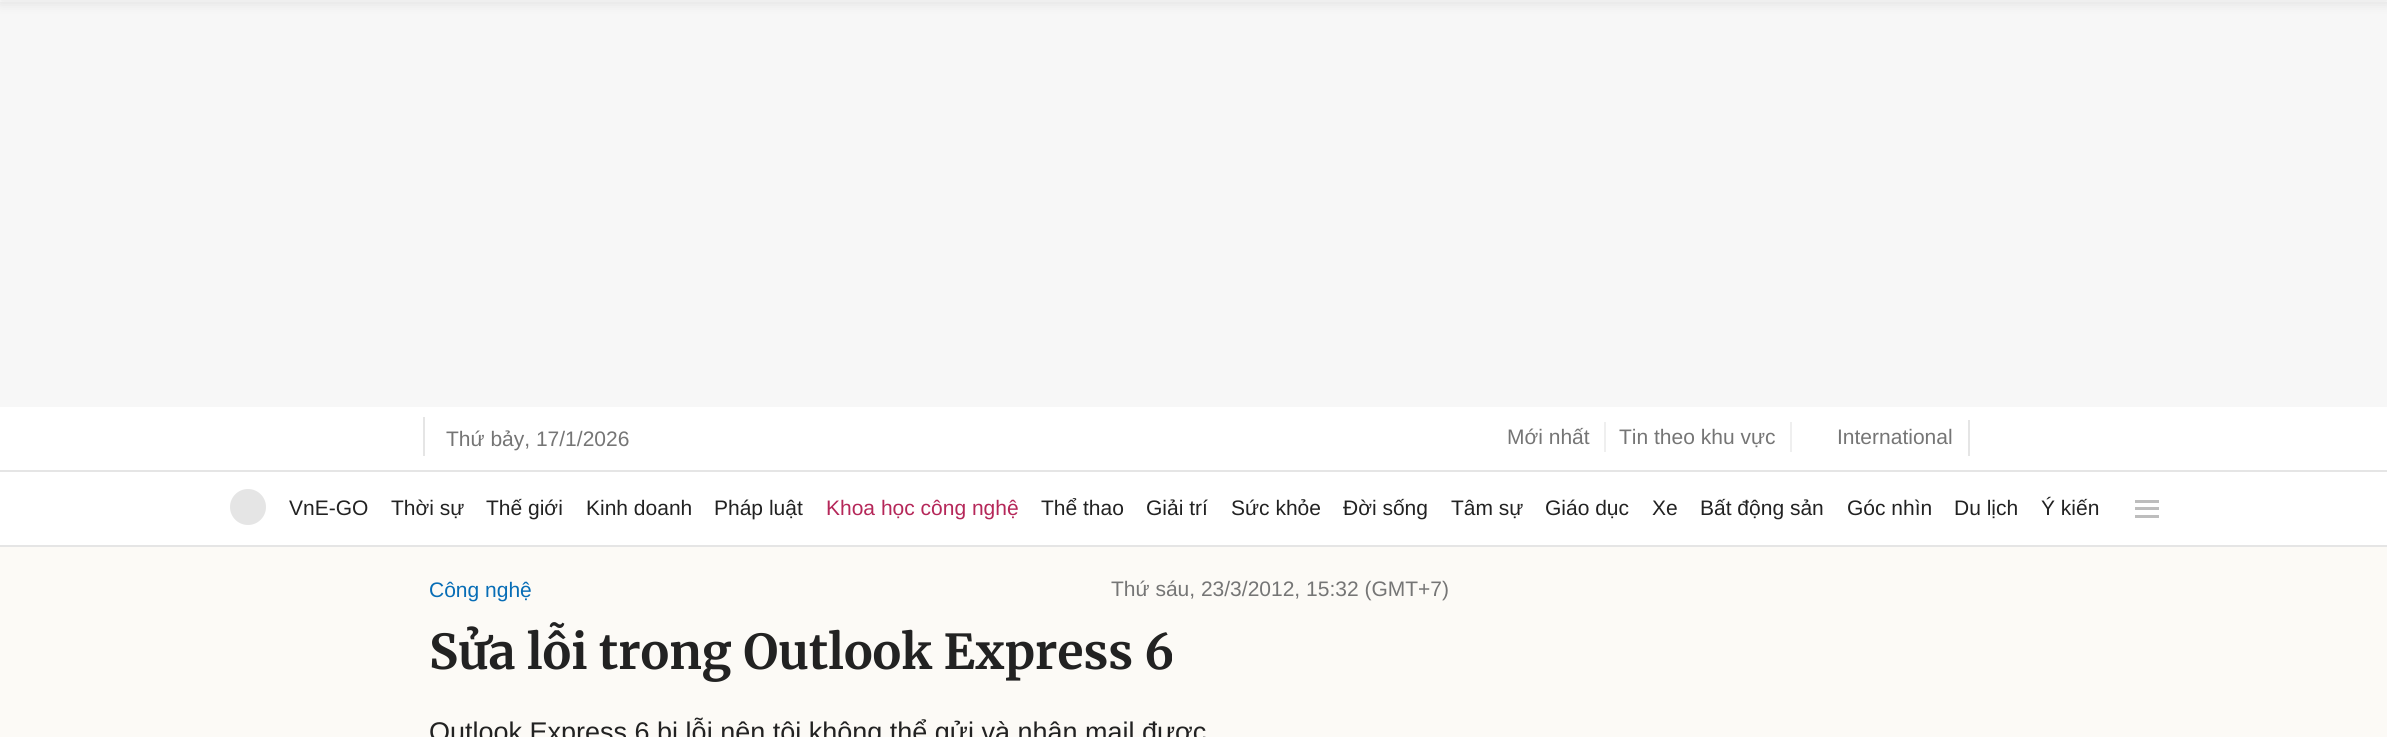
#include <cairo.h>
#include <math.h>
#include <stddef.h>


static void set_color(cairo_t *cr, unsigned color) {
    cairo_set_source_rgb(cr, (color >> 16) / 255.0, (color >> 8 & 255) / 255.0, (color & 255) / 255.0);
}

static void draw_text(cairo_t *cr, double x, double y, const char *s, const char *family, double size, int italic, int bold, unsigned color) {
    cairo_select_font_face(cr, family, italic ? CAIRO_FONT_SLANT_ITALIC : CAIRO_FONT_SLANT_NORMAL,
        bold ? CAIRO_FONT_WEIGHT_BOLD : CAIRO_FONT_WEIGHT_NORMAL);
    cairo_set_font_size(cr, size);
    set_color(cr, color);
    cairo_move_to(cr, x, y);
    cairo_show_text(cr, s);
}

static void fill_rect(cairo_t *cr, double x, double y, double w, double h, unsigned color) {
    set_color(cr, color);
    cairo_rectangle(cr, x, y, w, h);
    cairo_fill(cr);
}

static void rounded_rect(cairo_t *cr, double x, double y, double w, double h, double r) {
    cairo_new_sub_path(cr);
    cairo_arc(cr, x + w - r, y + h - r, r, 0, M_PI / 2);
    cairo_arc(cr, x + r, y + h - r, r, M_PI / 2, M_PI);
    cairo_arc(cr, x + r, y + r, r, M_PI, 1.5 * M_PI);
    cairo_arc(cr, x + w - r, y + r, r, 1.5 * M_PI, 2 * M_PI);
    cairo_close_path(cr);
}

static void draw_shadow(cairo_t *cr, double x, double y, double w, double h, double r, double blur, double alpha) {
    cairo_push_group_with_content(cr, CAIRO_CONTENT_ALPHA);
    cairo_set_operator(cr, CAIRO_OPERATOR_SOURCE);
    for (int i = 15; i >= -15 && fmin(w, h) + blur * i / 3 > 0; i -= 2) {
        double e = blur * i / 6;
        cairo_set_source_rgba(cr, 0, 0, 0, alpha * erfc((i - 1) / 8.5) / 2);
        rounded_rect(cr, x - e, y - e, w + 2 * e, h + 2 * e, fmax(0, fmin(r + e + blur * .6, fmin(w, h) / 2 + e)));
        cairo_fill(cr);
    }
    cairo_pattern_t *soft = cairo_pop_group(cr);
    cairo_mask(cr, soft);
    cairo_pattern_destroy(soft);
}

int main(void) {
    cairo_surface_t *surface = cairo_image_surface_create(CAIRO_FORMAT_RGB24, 2387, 737);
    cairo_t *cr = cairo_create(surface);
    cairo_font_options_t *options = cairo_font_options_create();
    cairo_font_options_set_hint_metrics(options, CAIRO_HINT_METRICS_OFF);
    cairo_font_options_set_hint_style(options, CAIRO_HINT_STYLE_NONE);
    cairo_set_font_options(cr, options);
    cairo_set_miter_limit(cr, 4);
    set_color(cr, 0xFFFFFF);
    cairo_paint(cr);
    fill_rect(cr, 0, 2, 2387, 405, 0xF7F7F7);
    fill_rect(cr, 0, 470, 2387, 2, 0xE5E5E5);
    fill_rect(cr, 423, 417, 2, 39, 0xE5E5E5);
    draw_text(cr, 446, 446, "Thứ bảy, 17/1/2026", "Liberation Sans", 21, 0, 0, 0x757575);
    draw_text(cr, 1507, 444, "Mới nhất", "Liberation Sans", 21, 0, 0, 0x757575);
    fill_rect(cr, 1604, 422, 2, 30, 0xEFEFEF);
    draw_text(cr, 1619, 444, "Tin theo khu vực", "Liberation Sans", 21, 0, 0, 0x757575);
    fill_rect(cr, 1790, 422, 2, 30, 0xEFEFEF);
    draw_text(cr, 1837, 444, "International", "Liberation Sans", 21, 0, 0, 0x757575);
    fill_rect(cr, 1968, 420, 2, 36, 0xE5E5E5);
    fill_rect(cr, 0, 545, 2387, 2, 0xE5E5E5);
    cairo_new_path(cr);
    cairo_arc(cr, 248, 507, 18, 0, 2 * M_PI);
    cairo_fill(cr);
    draw_text(cr, 289, 515, "VnE-GO", "Liberation Sans", 21, 0, 0, 0x222222);
    draw_text(cr, 391, 515, "Thời sự", "Liberation Sans", 21, 0, 0, 0x222222);
    draw_text(cr, 486, 515, "Thế giới", "Liberation Sans", 21, 0, 0, 0x222222);
    draw_text(cr, 586, 515, "Kinh doanh", "Liberation Sans", 21, 0, 0, 0x222222);
    draw_text(cr, 714, 515, "Pháp luật", "Liberation Sans", 21, 0, 0, 0x222222);
    draw_text(cr, 826, 515, "Khoa học công nghệ", "Liberation Sans", 21, 0, 0, 0xB52759);
    draw_text(cr, 1041, 515, "Thể thao", "Liberation Sans", 21, 0, 0, 0x222222);
    draw_text(cr, 1146, 515, "Giải trí", "Liberation Sans", 21, 0, 0, 0x222222);
    draw_text(cr, 1231, 515, "Sức khỏe", "Liberation Sans", 21, 0, 0, 0x222222);
    draw_text(cr, 1343, 515, "Đời sống", "Liberation Sans", 21, 0, 0, 0x222222);
    draw_text(cr, 1451, 515, "Tâm sự", "Liberation Sans", 21, 0, 0, 0x222222);
    draw_text(cr, 1545, 515, "Giáo dục", "Liberation Sans", 21, 0, 0, 0x222222);
    draw_text(cr, 1652, 515, "Xe", "Liberation Sans", 21, 0, 0, 0x222222);
    draw_text(cr, 1700, 515, "Bất động sản", "Liberation Sans", 21, 0, 0, 0x222222);
    draw_text(cr, 1847, 515, "Góc nhìn", "Liberation Sans", 21, 0, 0, 0x222222);
    draw_text(cr, 1954, 515, "Du lịch", "Liberation Sans", 21, 0, 0, 0x222222);
    draw_text(cr, 2041, 515, "Ý kiến", "Liberation Sans", 21, 0, 0, 0x222222);
    fill_rect(cr, 2135, 500, 24, 3, 0xBDBDBD);
    fill_rect(cr, 2135, 507, 24, 3, 0xBDBDBD);
    fill_rect(cr, 2135, 515, 24, 3, 0xBDBDBD);
    fill_rect(cr, 0, 547, 2387, 190, 0xFCFAF6);
    set_color(cr, 0x000000);
    draw_shadow(cr, 0, -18, 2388, 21, 0, 6, 0.1);
    draw_text(cr, 429, 597, "Công nghệ", "Liberation Sans", 21, 0, 0, 0x076DB6);
    draw_text(cr, 1111, 596, "Thứ sáu, 23/3/2012, 15:32 (GMT+7)", "Liberation Sans", 21, 0, 0, 0x757575);
    draw_text(cr, 429, 669, "Sửa lỗi trong Outlook Express 6", "Merriweather", 48, 0, 1, 0x222222);
    draw_text(cr, 429, 741, "Outlook Express 6 bị lỗi nên tôi không thể gửi và nhận mail được", "Liberation Sans", 27, 0, 0, 0x222222);
    cairo_surface_write_to_png(surface, "output.png");
    cairo_font_options_destroy(options);
    cairo_destroy(cr);
    cairo_surface_destroy(surface);
    return 0;
}
